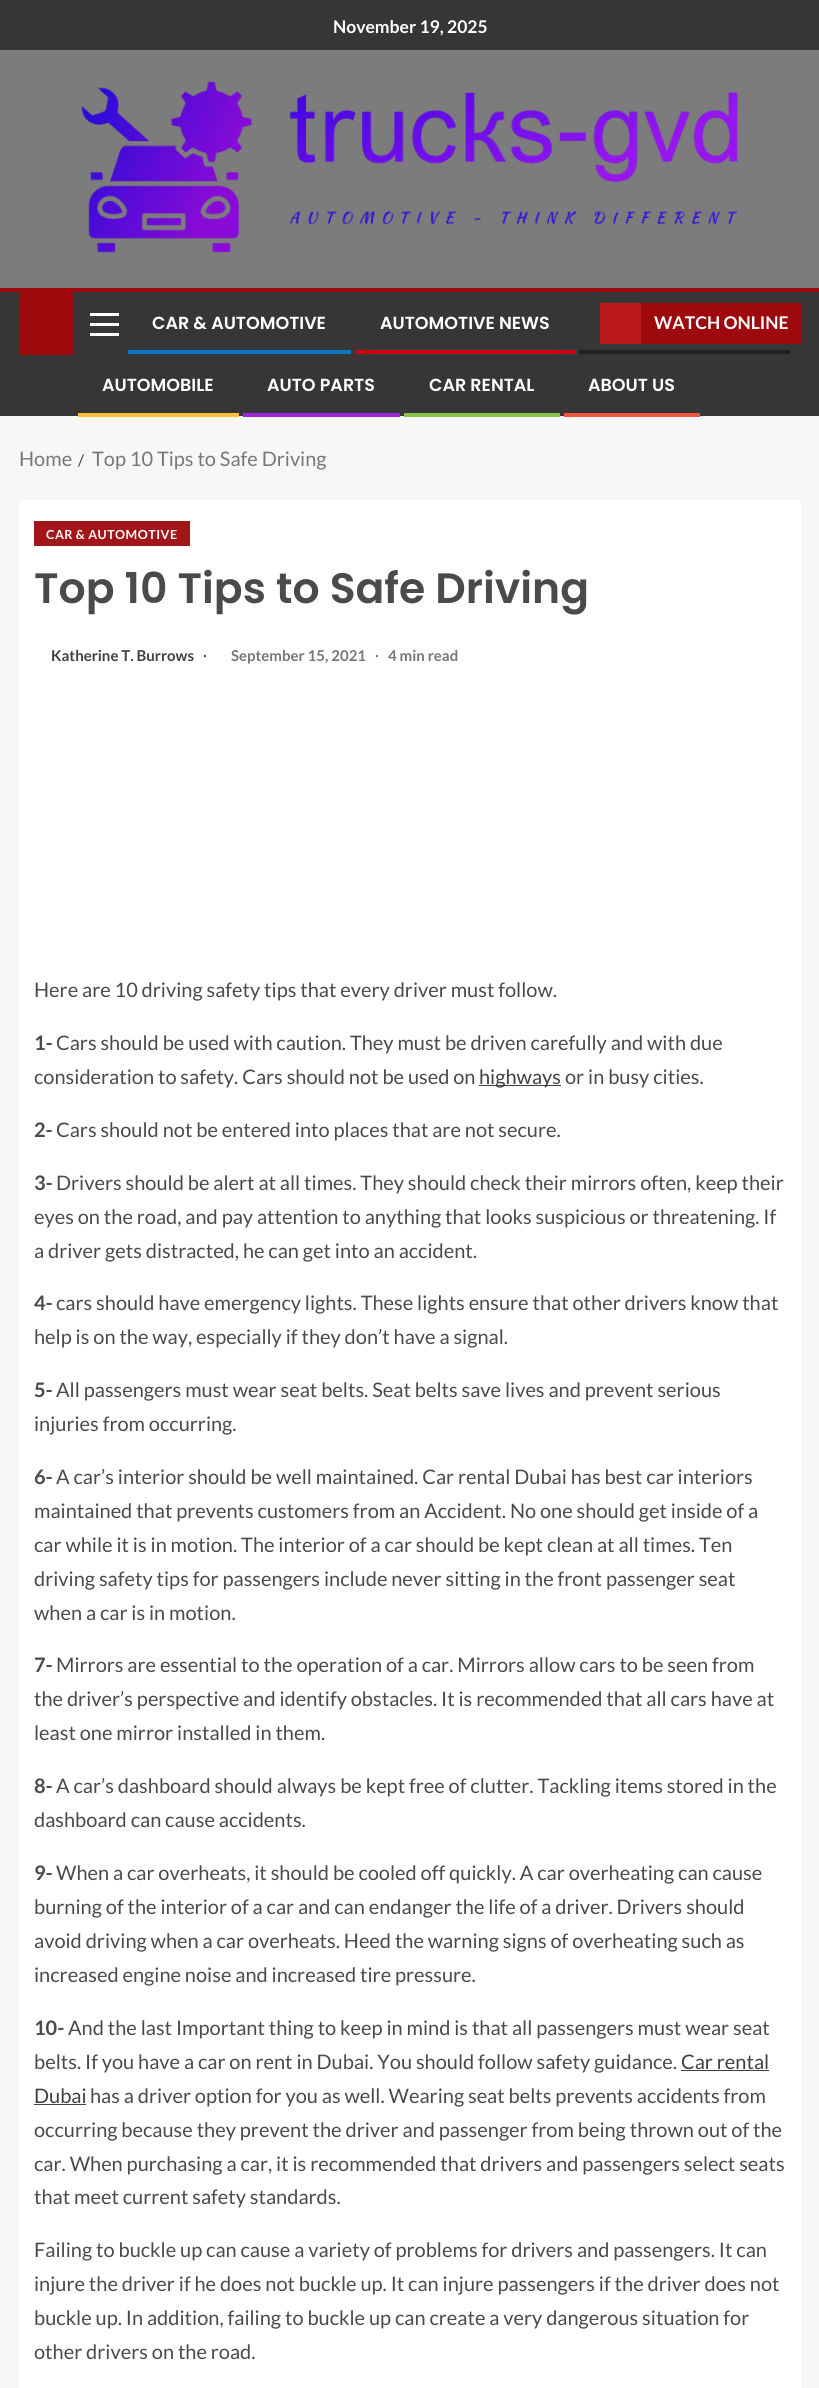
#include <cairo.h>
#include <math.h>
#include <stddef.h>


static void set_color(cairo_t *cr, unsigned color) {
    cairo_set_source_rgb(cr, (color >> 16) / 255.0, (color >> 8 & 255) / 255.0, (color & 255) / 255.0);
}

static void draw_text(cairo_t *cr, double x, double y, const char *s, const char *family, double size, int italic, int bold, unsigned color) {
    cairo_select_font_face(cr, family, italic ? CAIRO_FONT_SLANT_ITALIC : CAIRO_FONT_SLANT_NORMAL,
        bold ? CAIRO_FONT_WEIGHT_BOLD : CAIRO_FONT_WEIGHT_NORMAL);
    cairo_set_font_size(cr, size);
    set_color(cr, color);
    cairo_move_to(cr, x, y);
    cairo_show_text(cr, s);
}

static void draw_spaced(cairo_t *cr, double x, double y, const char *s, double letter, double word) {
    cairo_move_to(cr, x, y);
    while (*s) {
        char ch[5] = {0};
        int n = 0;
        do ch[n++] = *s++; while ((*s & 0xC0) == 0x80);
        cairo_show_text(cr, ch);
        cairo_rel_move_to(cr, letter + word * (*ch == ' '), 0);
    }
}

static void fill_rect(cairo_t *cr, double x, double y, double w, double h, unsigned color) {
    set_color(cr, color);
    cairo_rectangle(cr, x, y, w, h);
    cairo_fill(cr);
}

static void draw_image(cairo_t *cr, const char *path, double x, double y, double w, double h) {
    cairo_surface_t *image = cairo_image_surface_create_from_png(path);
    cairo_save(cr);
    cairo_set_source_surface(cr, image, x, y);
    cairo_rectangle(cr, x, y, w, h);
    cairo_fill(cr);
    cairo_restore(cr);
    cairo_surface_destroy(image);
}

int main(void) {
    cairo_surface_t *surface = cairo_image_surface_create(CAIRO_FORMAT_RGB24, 819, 2388);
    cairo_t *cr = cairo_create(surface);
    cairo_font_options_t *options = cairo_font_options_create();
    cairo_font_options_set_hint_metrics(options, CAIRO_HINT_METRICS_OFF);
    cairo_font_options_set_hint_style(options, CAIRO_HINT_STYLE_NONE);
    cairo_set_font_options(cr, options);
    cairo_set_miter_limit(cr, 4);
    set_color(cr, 0xF7F7F7);
    cairo_paint(cr);
    fill_rect(cr, 0, 0, 819, 50, 0x363636);
    draw_text(cr, 333, 33, "November 19, 2025", "Lato", 17.5, 0, 1, 0xFFFFFF);
    fill_rect(cr, 0, 50, 819, 238, 0x7C7C7C);
    draw_image(cr, "assets/img1.png", 81, 81, 657, 172);
    fill_rect(cr, 0, 292, 819, 124, 0x363636);
    fill_rect(cr, 0, 288, 819, 4, 0x9D090D);
    fill_rect(cr, 19, 292, 54, 63, 0x9D090D);
    fill_rect(cr, 90, 323, 29, 3, 0xFFFFFF);
    fill_rect(cr, 90, 313, 29, 3, 0xFFFFFF);
    fill_rect(cr, 90, 333, 29, 3, 0xFFFFFF);
    draw_text(cr, 152, 329, "CAR & AUTOMOTIVE", "Poppins SemiBold", 17.5, 0, 0, 0xFFFFFF);
    fill_rect(cr, 128, 350, 223, 4, 0x0776C6);
    draw_text(cr, 380, 329, "AUTOMOTIVE NEWS", "Poppins SemiBold", 17.5, 0, 0, 0xFFFFFF);
    fill_rect(cr, 355, 350, 220, 4, 0xCC0010);
    fill_rect(cr, 579, 350, 211, 4, 0x202020);
    draw_text(cr, 102, 391, "AUTOMOBILE", "Poppins SemiBold", 17.5, 0, 0, 0xFFFFFF);
    fill_rect(cr, 78, 413, 161, 4, 0xFFBF3F);
    draw_text(cr, 267, 391, "AUTO PARTS", "Poppins SemiBold", 17.5, 0, 0, 0xFFFFFF);
    fill_rect(cr, 243, 413, 157, 4, 0x9C27D9);
    draw_text(cr, 429, 391, "CAR RENTAL", "Poppins SemiBold", 17.5, 0, 0, 0xFFFFFF);
    fill_rect(cr, 404, 413, 156, 4, 0x8BC34A);
    draw_text(cr, 588, 391, "ABOUT US", "Poppins SemiBold", 17.5, 0, 0, 0xFFFFFF);
    fill_rect(cr, 564, 413, 136, 4, 0xED553F);
    fill_rect(cr, 600, 303, 41, 41, 0xBB1919);
    fill_rect(cr, 641, 303, 160, 41, 0x9D090D);
    draw_text(cr, 654, 329, "WATCH ONLINE", "Lato", 17.5, 0, 1, 0xFFFFFF);
    draw_text(cr, 19, 466, "Home", "Lato", 20, 0, 0, 0x777777);
    draw_text(cr, 78, 466, "/", "Lato", 16, 0, 0, 0x393E46);
    draw_text(cr, 92, 466, "Top 10 Tips to Safe Driving", "Lato", 20, 0, 0, 0x777777);
    fill_rect(cr, 19, 500, 782, 1888, 0xFFFFFF);
    fill_rect(cr, 34, 521, 156, 25, 0xA21519);
    cairo_select_font_face(cr, "Lato", CAIRO_FONT_SLANT_NORMAL, CAIRO_FONT_WEIGHT_BOLD);
    cairo_set_font_size(cr, 12.5);
    set_color(cr, 0xFFFFFF);
    draw_spaced(cr, 46, 539, "CAR & AUTOMOTIVE", 0.5, 0);
    draw_text(cr, 34, 603, "Top 10 Tips to Safe Driving", "Poppins SemiBold", 42.5, 0, 0, 0x4A4A4A);
    draw_text(cr, 51, 661, "Katherine T. Burrows", "Lato", 15, 0, 1, 0x404040);
    draw_text(cr, 203, 661, "∙", "Liberation Serif", 15, 0, 1, 0x4A4A4A);
    draw_text(cr, 231, 661, "September 15, 2021", "Lato", 15, 0, 1, 0x777777);
    draw_text(cr, 375, 661, "∙", "Liberation Serif", 15, 0, 1, 0x777777);
    draw_text(cr, 388, 661, "4 min read", "Lato", 15, 0, 1, 0x777777);
    draw_text(cr, 34, 997, "Here are 10 driving safety tips that every driver must follow.", "Lato", 20, 0, 0, 0x4A4A4A);
    draw_text(cr, 34, 1050, "1-", "Lato", 20, 0, 1, 0x4A4A4A);
    draw_text(cr, 56, 1050, "Cars should be used with caution. They must be driven carefully and with due", "Lato", 20, 0, 0, 0x4A4A4A);
    draw_text(cr, 34, 1084, "consideration to safety. Cars should not be used on", "Lato", 20, 0, 0, 0x4A4A4A);
    fill_rect(cr, 479, 1085, 82, 1, 0x404040);
    draw_text(cr, 479, 1084, "highways", "Lato", 20, 0, 0, 0x404040);
    draw_text(cr, 565, 1084, "or in busy cities.", "Lato", 20, 0, 0, 0x4A4A4A);
    draw_text(cr, 34, 1137, "2-", "Lato", 20, 0, 1, 0x4A4A4A);
    draw_text(cr, 56, 1137, "Cars should not be entered into places that are not secure.", "Lato", 20, 0, 0, 0x4A4A4A);
    draw_text(cr, 34, 1190, "3-", "Lato", 20, 0, 1, 0x4A4A4A);
    draw_text(cr, 56, 1190, "Drivers should be alert at all times. They should check their mirrors often, keep their", "Lato", 20, 0, 0, 0x4A4A4A);
    draw_text(cr, 34, 1224, "eyes on the road, and pay attention to anything that looks suspicious or threatening. If", "Lato", 20, 0, 0, 0x4A4A4A);
    draw_text(cr, 34, 1258, "a driver gets distracted, he can get into an accident.", "Lato", 20, 0, 0, 0x4A4A4A);
    draw_text(cr, 34, 1310, "4-", "Lato", 20, 0, 1, 0x4A4A4A);
    draw_text(cr, 56, 1310, "cars should have emergency lights. These lights ensure that other drivers know that", "Lato", 20, 0, 0, 0x4A4A4A);
    draw_text(cr, 34, 1344, "help is on the way, especially if they don’t have a signal.", "Lato", 20, 0, 0, 0x4A4A4A);
    draw_text(cr, 34, 1397, "5-", "Lato", 20, 0, 1, 0x4A4A4A);
    draw_text(cr, 56, 1397, "All passengers must wear seat belts. Seat belts save lives and prevent serious", "Lato", 20, 0, 0, 0x4A4A4A);
    draw_text(cr, 34, 1431, "injuries from occurring.", "Lato", 20, 0, 0, 0x4A4A4A);
    draw_text(cr, 34, 1484, "6-", "Lato", 20, 0, 1, 0x4A4A4A);
    draw_text(cr, 56, 1484, "A car’s interior should be well maintained. Car rental Dubai has best car interiors", "Lato", 20, 0, 0, 0x4A4A4A);
    draw_text(cr, 34, 1518, "maintained that prevents customers from an Accident. No one should get inside of a", "Lato", 20, 0, 0, 0x4A4A4A);
    draw_text(cr, 34, 1552, "car while it is in motion. The interior of a car should be kept clean at all times. Ten", "Lato", 20, 0, 0, 0x4A4A4A);
    draw_text(cr, 34, 1586, "driving safety tips for passengers include never sitting in the front passenger seat", "Lato", 20, 0, 0, 0x4A4A4A);
    draw_text(cr, 34, 1620, "when a car is in motion.", "Lato", 20, 0, 0, 0x4A4A4A);
    draw_text(cr, 34, 1672, "7-", "Lato", 20, 0, 1, 0x4A4A4A);
    draw_text(cr, 56, 1672, "Mirrors are essential to the operation of a car. Mirrors allow cars to be seen from", "Lato", 20, 0, 0, 0x4A4A4A);
    draw_text(cr, 34, 1706, "the driver’s perspective and identify obstacles. It is recommended that all cars have at", "Lato", 20, 0, 0, 0x4A4A4A);
    draw_text(cr, 34, 1740, "least one mirror installed in them.", "Lato", 20, 0, 0, 0x4A4A4A);
    draw_text(cr, 34, 1793, "8-", "Lato", 20, 0, 1, 0x4A4A4A);
    draw_text(cr, 56, 1793, "A car’s dashboard should always be kept free of clutter. Tackling items stored in the", "Lato", 20, 0, 0, 0x4A4A4A);
    draw_text(cr, 34, 1827, "dashboard can cause accidents.", "Lato", 20, 0, 0, 0x4A4A4A);
    draw_text(cr, 34, 1880, "9-", "Lato", 20, 0, 1, 0x4A4A4A);
    draw_text(cr, 56, 1880, "When a car overheats, it should be cooled off quickly. A car overheating can cause", "Lato", 20, 0, 0, 0x4A4A4A);
    draw_text(cr, 34, 1914, "burning of the interior of a car and can endanger the life of a driver. Drivers should", "Lato", 20, 0, 0, 0x4A4A4A);
    draw_text(cr, 34, 1948, "avoid driving when a car overheats. Heed the warning signs of overheating such as", "Lato", 20, 0, 0, 0x4A4A4A);
    draw_text(cr, 34, 1982, "increased engine noise and increased tire pressure.", "Lato", 20, 0, 0, 0x4A4A4A);
    draw_text(cr, 34, 2035, "10-", "Lato", 20, 0, 1, 0x4A4A4A);
    draw_text(cr, 68, 2035, "And the last Important thing to keep in mind is that all passengers must wear seat", "Lato", 20, 0, 0, 0x4A4A4A);
    draw_text(cr, 34, 2069, "belts. If you have a car on rent in Dubai. You should follow safety guidance.", "Lato", 20, 0, 0, 0x4A4A4A);
    draw_text(cr, 681, 2069, "Car rental", "Lato", 20, 0, 0, 0x404040);
    fill_rect(cr, 681, 2070, 88, 1, 0x404040);
    draw_text(cr, 34, 2103, "Dubai", "Lato", 20, 0, 0, 0x404040);
    fill_rect(cr, 34, 2104, 52, 1, 0x404040);
    draw_text(cr, 90, 2103, "has a driver option for you as well. Wearing seat belts prevents accidents from", "Lato", 20, 0, 0, 0x4A4A4A);
    draw_text(cr, 34, 2137, "occurring because they prevent the driver and passenger from being thrown out of the", "Lato", 20, 0, 0, 0x4A4A4A);
    draw_text(cr, 34, 2171, "car. When purchasing a car, it is recommended that drivers and passengers select seats", "Lato", 20, 0, 0, 0x4A4A4A);
    draw_text(cr, 34, 2204, "that meet current safety standards.", "Lato", 20, 0, 0, 0x4A4A4A);
    draw_text(cr, 34, 2257, "Failing to buckle up can cause a variety of problems for drivers and passengers. It can", "Lato", 20, 0, 0, 0x4A4A4A);
    draw_text(cr, 34, 2291, "injure the driver if he does not buckle up. It can injure passengers if the driver does not", "Lato", 20, 0, 0, 0x4A4A4A);
    draw_text(cr, 34, 2325, "buckle up. In addition, failing to buckle up can create a very dangerous situation for", "Lato", 20, 0, 0, 0x4A4A4A);
    draw_text(cr, 34, 2359, "other drivers on the road.", "Lato", 20, 0, 0, 0x4A4A4A);
    cairo_surface_write_to_png(surface, "output.png");
    cairo_font_options_destroy(options);
    cairo_destroy(cr);
    cairo_surface_destroy(surface);
    return 0;
}
